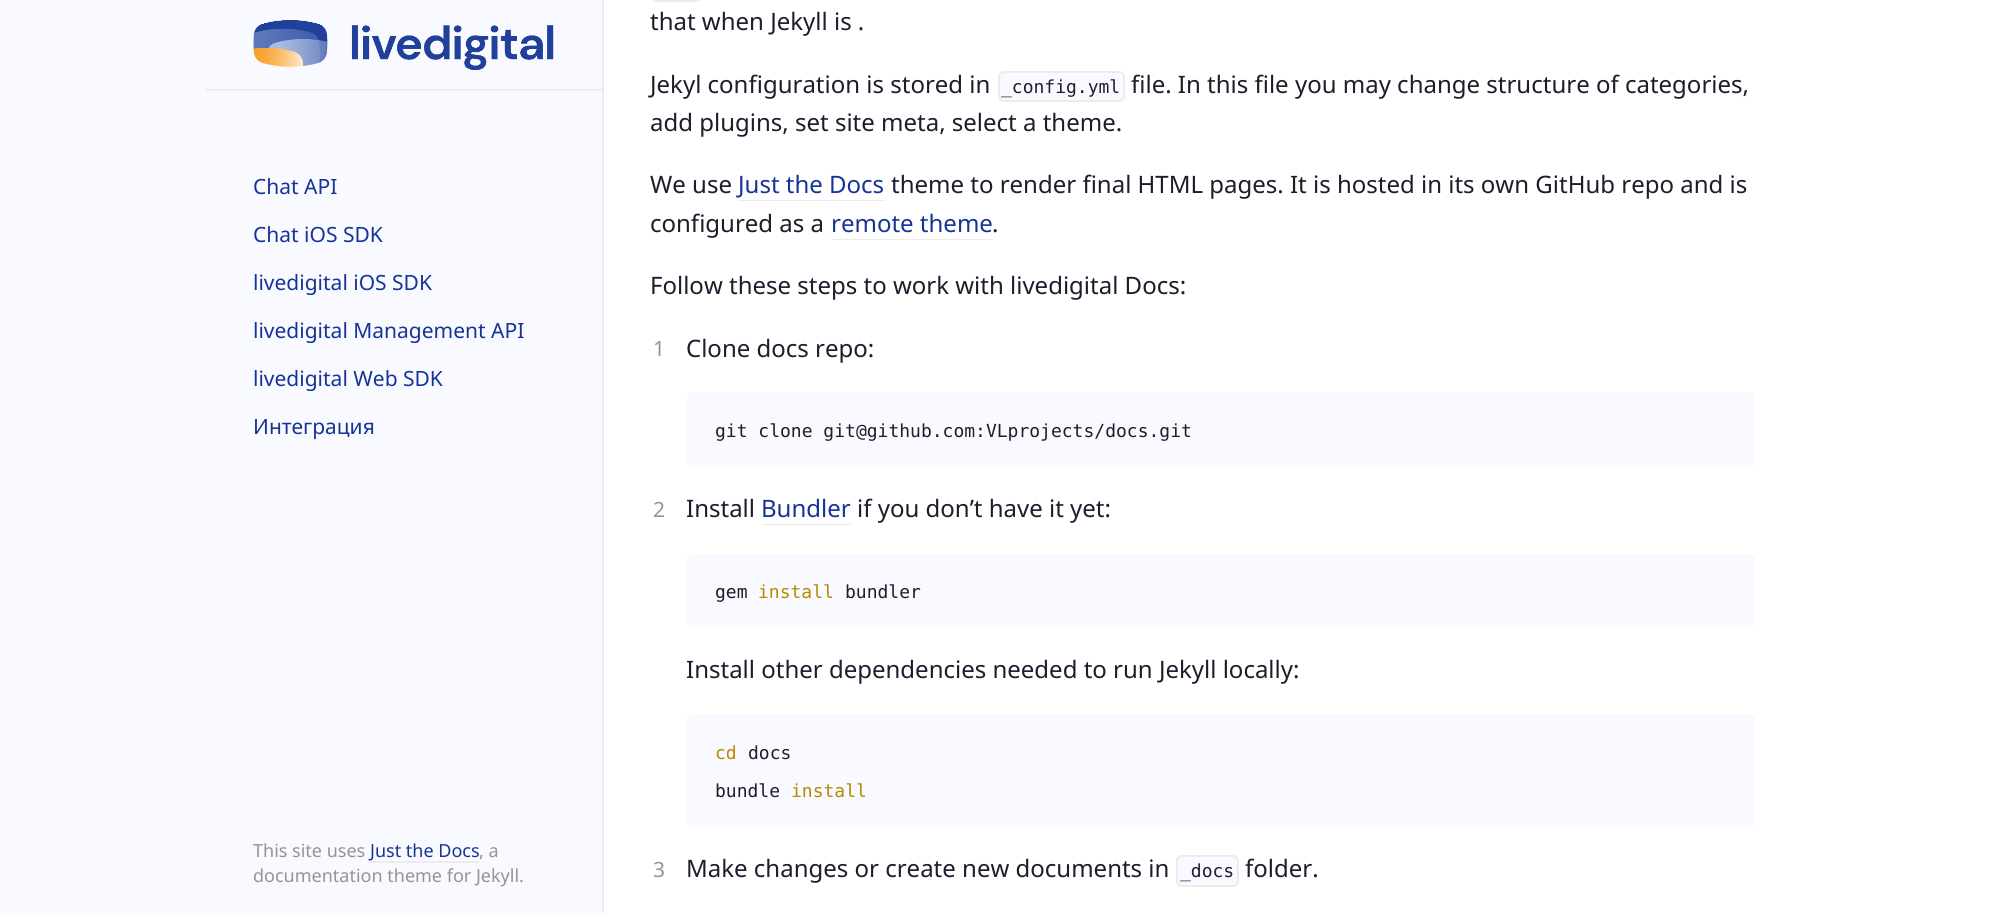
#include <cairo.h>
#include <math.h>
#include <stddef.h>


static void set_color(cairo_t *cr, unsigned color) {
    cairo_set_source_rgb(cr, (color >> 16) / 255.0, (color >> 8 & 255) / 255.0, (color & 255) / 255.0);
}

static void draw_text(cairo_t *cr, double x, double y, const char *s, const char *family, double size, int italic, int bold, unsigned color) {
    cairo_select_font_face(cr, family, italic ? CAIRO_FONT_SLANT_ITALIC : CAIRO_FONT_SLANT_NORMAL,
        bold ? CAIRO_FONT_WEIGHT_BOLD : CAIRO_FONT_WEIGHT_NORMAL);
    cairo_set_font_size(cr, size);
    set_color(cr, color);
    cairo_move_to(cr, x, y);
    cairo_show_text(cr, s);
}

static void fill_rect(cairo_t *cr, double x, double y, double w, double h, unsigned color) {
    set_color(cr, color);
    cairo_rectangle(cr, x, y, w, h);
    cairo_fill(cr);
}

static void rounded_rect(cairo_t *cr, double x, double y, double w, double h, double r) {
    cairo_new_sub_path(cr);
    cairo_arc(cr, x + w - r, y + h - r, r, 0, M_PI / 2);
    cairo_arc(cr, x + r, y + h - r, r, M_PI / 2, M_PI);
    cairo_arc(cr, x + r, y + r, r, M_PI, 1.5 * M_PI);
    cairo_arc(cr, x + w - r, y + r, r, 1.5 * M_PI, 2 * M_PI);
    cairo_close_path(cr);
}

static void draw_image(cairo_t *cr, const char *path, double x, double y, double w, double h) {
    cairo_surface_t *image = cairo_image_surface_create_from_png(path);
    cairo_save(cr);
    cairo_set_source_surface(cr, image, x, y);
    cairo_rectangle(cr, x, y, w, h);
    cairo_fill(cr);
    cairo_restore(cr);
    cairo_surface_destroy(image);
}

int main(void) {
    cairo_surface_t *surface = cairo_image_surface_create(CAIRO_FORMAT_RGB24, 2008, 913);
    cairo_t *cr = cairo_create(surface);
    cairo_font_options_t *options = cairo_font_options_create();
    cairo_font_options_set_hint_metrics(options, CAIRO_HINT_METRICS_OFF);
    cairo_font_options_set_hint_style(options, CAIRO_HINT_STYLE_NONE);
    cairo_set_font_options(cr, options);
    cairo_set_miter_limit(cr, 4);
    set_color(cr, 0xFFFFFF);
    cairo_paint(cr);
    fill_rect(cr, 0, 0, 602, 913, 0xF9FAFF);
    fill_rect(cr, 602, 0, 2, 913, 0xEEEBEE);
    fill_rect(cr, 206, 89, 396, 2, 0xEEEBEE);
    draw_image(cr, "assets/img1.png", 253, 20, 301, 50);
    draw_text(cr, 253, 194, "Chat API", "Noto Sans", 21, 0, 0, 0x163498);
    draw_text(cr, 253, 242, "Chat iOS SDK", "Noto Sans", 21, 0, 0, 0x163498);
    draw_text(cr, 253, 290, "livedigital iOS SDK", "Noto Sans", 21, 0, 0, 0x163498);
    draw_text(cr, 253, 338, "livedigital Management API", "Noto Sans", 21, 0, 0, 0x163498);
    draw_text(cr, 253, 386, "livedigital Web SDK", "Noto Sans", 21, 0, 0, 0x163498);
    draw_text(cr, 253, 434, "Интеграция", "Noto Sans", 21, 0, 0, 0x163498);
    draw_text(cr, 253, 857, "This site uses", "Noto Sans", 18, 0, 0, 0x959396);
    draw_text(cr, 370, 857, "Just the Docs", "Noto Sans", 18, 0, 0, 0x163498);
    fill_rect(cr, 369, 861, 110, 2, 0xEEEBEE);
    draw_text(cr, 479, 857, ", a", "Noto Sans", 18, 0, 0, 0x959396);
    draw_text(cr, 253, 882, "documentation theme for Jekyll.", "Noto Sans", 18, 0, 0, 0x959396);
    rounded_rect(cr, 652, -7, 49, 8, 5);
    set_color(cr, 0xEEEBEE);
    cairo_stroke(cr);
    draw_text(cr, 650, 30, "that when Jekyll is .", "Noto Sans", 24, 0, 0, 0x1D1D2C);
    draw_text(cr, 650, 93, "Jekyl configuration is stored in", "Noto Sans", 24, 0, 0, 0x1D1D2C);
    set_color(cr, 0xF9FAFF);
    rounded_rect(cr, 999, 72, 125, 29, 5);
    cairo_fill_preserve(cr);
    set_color(cr, 0xEEEBEE);
    cairo_stroke(cr);
    draw_text(cr, 1001, 93, "_config.yml", "DejaVu Sans Mono", 18, 0, 0, 0x1D1D2C);
    draw_text(cr, 1131, 93, "file. In this file you may change structure of categories,", "Noto Sans", 24, 0, 0, 0x1D1D2C);
    draw_text(cr, 650, 131, "add plugins, set site meta, select a theme.", "Noto Sans", 24, 0, 0, 0x1D1D2C);
    draw_text(cr, 650, 193, "We use", "Noto Sans", 24, 0, 0, 0x1D1D2C);
    draw_text(cr, 738, 193, "Just the Docs", "Noto Sans", 24, 0, 0, 0x163498);
    fill_rect(cr, 738, 200, 147, 1, 0xEEEBEE);
    draw_text(cr, 891, 193, "theme to render final HTML pages. It is hosted in its own GitHub repo and is", "Noto Sans", 24, 0, 0, 0x1D1D2C);
    draw_text(cr, 650, 232, "configured as a", "Noto Sans", 24, 0, 0, 0x1D1D2C);
    draw_text(cr, 831, 232, "remote theme", "Noto Sans", 24, 0, 0, 0x163498);
    fill_rect(cr, 831, 239, 162, 1, 0xEEEBEE);
    draw_text(cr, 992, 232, ".", "Noto Sans", 24, 0, 0, 0x1D1D2C);
    draw_text(cr, 650, 294, "Follow these steps to work with livedigital Docs:", "Noto Sans", 24, 0, 0, 0x1D1D2C);
    draw_text(cr, 653, 356, "1", "Noto Sans", 21, 0, 0, 0x959396);
    draw_text(cr, 686, 357, "Clone docs repo:", "Noto Sans", 24, 0, 0, 0x1D1D2C);
    set_color(cr, 0xF9FAFF);
    rounded_rect(cr, 687, 392, 1068, 75, 6);
    cairo_fill(cr);
    draw_text(cr, 715, 437, "git clone git@github.com:VLprojects/docs.git", "DejaVu Sans Mono", 18, 0, 0, 0x1D1D2C);
    draw_text(cr, 653, 517, "2", "Noto Sans", 21, 0, 0, 0x959396);
    draw_text(cr, 686, 517, "Install", "Noto Sans", 24, 0, 0, 0x1D1D2C);
    draw_text(cr, 761, 517, "Bundler", "Noto Sans", 24, 0, 0, 0x163498);
    fill_rect(cr, 762, 524, 89, 1, 0xEEEBEE);
    draw_text(cr, 857, 517, "if you don’t have it yet:", "Noto Sans", 24, 0, 0, 0x1D1D2C);
    set_color(cr, 0xF9FAFF);
    rounded_rect(cr, 687, 554, 1068, 73, 6);
    cairo_fill(cr);
    draw_text(cr, 715, 598, "gem", "DejaVu Sans Mono", 18, 0, 0, 0x1D1D2C);
    draw_text(cr, 758, 598, "install", "DejaVu Sans Mono", 18, 0, 0, 0xB58900);
    draw_text(cr, 845, 598, "bundler", "DejaVu Sans Mono", 18, 0, 0, 0x1D1D2C);
    draw_text(cr, 686, 678, "Install other dependencies needed to run Jekyll locally:", "Noto Sans", 24, 0, 0, 0x1D1D2C);
    set_color(cr, 0xF9FAFF);
    rounded_rect(cr, 687, 714, 1068, 113, 6);
    cairo_fill(cr);
    draw_text(cr, 715, 759, "cd", "DejaVu Sans Mono", 18, 0, 0, 0xB58900);
    draw_text(cr, 748, 759, "docs", "DejaVu Sans Mono", 18, 0, 0, 0x1D1D2C);
    draw_text(cr, 715, 797, "bundle", "DejaVu Sans Mono", 18, 0, 0, 0x1D1D2C);
    draw_text(cr, 791, 797, "install", "DejaVu Sans Mono", 18, 0, 0, 0xB58900);
    draw_text(cr, 653, 877, "3", "Noto Sans", 21, 0, 0, 0x959396);
    draw_text(cr, 686, 877, "Make changes or create new documents in", "Noto Sans", 24, 0, 0, 0x1D1D2C);
    set_color(cr, 0xF9FAFF);
    rounded_rect(cr, 1177, 856, 61, 30, 5);
    cairo_fill_preserve(cr);
    set_color(cr, 0xEEEBEE);
    cairo_stroke(cr);
    draw_text(cr, 1180, 877, "_docs", "DejaVu Sans Mono", 18, 0, 0, 0x1D1D2C);
    draw_text(cr, 1245, 877, "folder.", "Noto Sans", 24, 0, 0, 0x1D1D2C);
    cairo_surface_write_to_png(surface, "output.png");
    cairo_font_options_destroy(options);
    cairo_destroy(cr);
    cairo_surface_destroy(surface);
    return 0;
}
